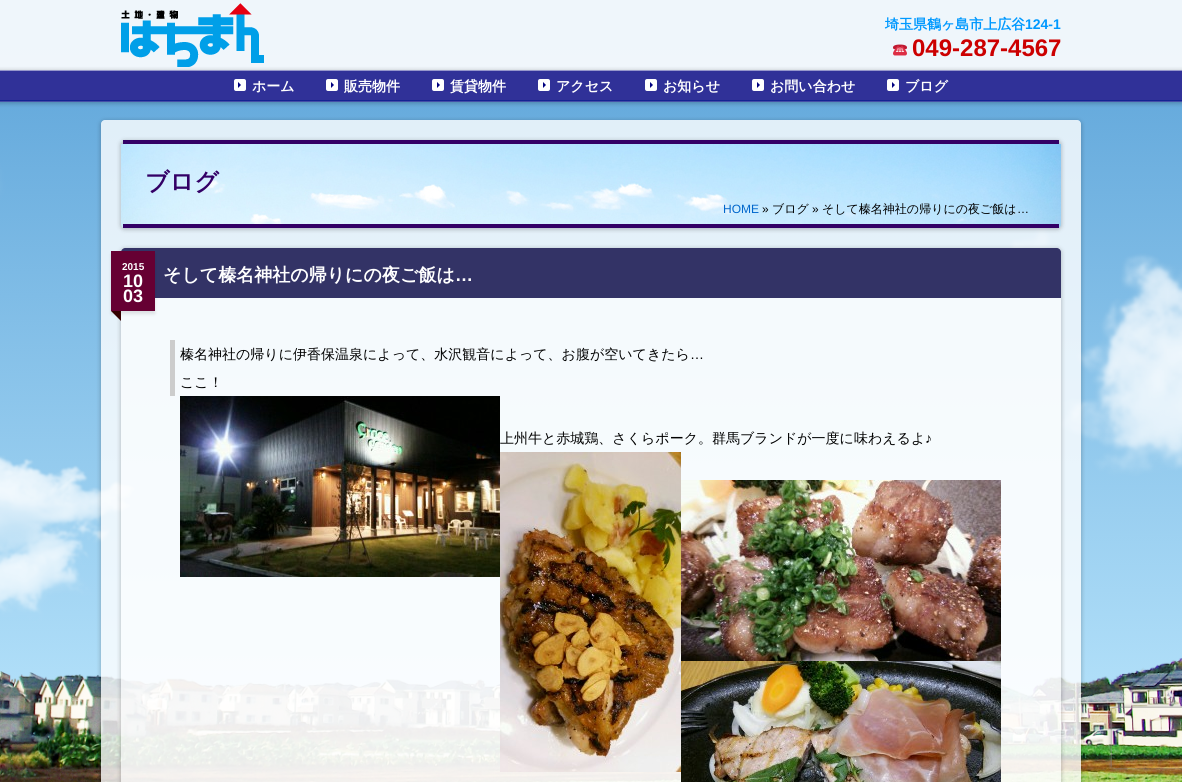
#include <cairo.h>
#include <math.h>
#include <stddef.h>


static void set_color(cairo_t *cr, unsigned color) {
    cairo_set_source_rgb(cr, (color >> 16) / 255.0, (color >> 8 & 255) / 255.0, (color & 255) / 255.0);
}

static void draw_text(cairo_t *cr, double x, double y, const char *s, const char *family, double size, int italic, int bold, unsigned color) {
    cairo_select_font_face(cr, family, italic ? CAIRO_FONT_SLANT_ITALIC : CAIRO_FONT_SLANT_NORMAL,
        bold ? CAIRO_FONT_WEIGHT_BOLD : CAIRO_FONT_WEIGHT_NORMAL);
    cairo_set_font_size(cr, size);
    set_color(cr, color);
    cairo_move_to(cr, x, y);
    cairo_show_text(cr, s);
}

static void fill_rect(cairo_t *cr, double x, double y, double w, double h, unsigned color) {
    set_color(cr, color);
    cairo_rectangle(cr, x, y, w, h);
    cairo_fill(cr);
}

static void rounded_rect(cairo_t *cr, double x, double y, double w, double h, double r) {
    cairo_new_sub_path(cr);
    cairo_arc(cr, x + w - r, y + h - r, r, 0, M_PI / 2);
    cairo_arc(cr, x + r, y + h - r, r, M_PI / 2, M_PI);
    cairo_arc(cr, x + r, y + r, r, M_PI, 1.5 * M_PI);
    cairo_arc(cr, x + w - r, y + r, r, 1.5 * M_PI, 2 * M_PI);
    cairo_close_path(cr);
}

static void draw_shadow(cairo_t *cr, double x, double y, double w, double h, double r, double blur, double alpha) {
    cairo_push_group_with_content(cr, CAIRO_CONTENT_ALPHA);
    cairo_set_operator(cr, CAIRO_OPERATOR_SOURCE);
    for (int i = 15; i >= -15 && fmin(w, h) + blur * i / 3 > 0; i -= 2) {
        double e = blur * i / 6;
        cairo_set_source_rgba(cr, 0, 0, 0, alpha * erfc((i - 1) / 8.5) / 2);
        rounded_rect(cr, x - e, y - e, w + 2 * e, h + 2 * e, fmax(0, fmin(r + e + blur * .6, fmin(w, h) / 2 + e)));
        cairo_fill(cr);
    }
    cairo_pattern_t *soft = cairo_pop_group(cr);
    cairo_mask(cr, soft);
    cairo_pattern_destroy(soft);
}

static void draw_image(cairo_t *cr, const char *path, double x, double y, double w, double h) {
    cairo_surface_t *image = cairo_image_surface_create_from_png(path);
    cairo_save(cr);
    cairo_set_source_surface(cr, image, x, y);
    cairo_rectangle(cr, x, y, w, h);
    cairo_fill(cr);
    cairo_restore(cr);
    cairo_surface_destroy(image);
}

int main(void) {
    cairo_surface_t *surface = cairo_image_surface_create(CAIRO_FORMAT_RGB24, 1182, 782);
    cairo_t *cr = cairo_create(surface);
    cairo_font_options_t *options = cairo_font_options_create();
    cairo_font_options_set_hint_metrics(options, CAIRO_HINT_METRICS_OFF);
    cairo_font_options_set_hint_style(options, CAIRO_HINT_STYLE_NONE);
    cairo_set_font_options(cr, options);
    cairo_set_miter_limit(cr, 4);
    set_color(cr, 0xFFFFFF);
    cairo_paint(cr);
    draw_image(cr, "assets/img1.png", 0, 0, 1182, 782);
    cairo_set_source_rgba(cr, 1, 1, 1, 0.9);
    cairo_rectangle(cr, 0, 0, 1182, 100);
    cairo_fill(cr);
    cairo_save(cr);
    cairo_set_fill_rule(cr, CAIRO_FILL_RULE_EVEN_ODD);
    cairo_new_path(cr);
    cairo_move_to(cr, 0, 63);
    cairo_line_to(cr, 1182, 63);
    cairo_line_to(cr, 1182, 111);
    cairo_line_to(cr, 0, 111);
    cairo_close_path(cr);
    cairo_move_to(cr, 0, 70);
    cairo_line_to(cr, 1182, 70);
    cairo_line_to(cr, 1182, 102);
    cairo_line_to(cr, 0, 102);
    cairo_close_path(cr);
    cairo_clip(cr);
    set_color(cr, 0x000000);
    draw_shadow(cr, -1, 70, 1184, 34, 0, 2, 0.2);
    cairo_restore(cr);
    draw_image(cr, "assets/img2.png", 121, 3, 143, 64);
    draw_text(cr, 885, 29, "埼玉県鶴ヶ島市上広谷", "WenQuanYi Zen Hei", 14, 0, 1, 0x0099FF);
    draw_text(cr, 1025, 29, "124-1", "Liberation Sans", 14, 0, 1, 0x0099FF);
    draw_image(cr, "assets/img3.png", 893, 44, 14, 12);
    draw_text(cr, 912, 56, "049-287-4567", "Liberation Sans", 24, 0, 1, 0xCC0000);
    cairo_set_source_rgba(cr, 0, 0, 0.502, 0.8);
    cairo_rectangle(cr, 0, 71, 1182, 30);
    cairo_fill(cr);
    fill_rect(cr, 0, 70, 1182, 1, 0x9798CC);
    fill_rect(cr, 0, 101, 1182, 1, 0x434EA8);
    set_color(cr, 0xFFFFFF);
    rounded_rect(cr, 234, 79, 12, 12, 2);
    cairo_fill(cr);
    set_color(cr, 0x000080);
    cairo_new_path(cr);
    cairo_move_to(cr, 238, 88);
    cairo_line_to(cr, 238, 82);
    cairo_line_to(cr, 241, 85);
    cairo_close_path(cr);
    cairo_fill(cr);
    draw_text(cr, 252, 91, "ホーム", "WenQuanYi Zen Hei", 14, 0, 1, 0xFFFFFF);
    rounded_rect(cr, 326, 79, 12, 12, 2);
    cairo_fill(cr);
    set_color(cr, 0x000080);
    cairo_new_path(cr);
    cairo_move_to(cr, 331, 88);
    cairo_line_to(cr, 331, 82);
    cairo_line_to(cr, 334, 85);
    cairo_close_path(cr);
    cairo_fill(cr);
    draw_text(cr, 344, 91, "販売物件", "WenQuanYi Zen Hei", 14, 0, 1, 0xFFFFFF);
    rounded_rect(cr, 432, 79, 12, 12, 2);
    cairo_fill(cr);
    set_color(cr, 0x000080);
    cairo_new_path(cr);
    cairo_move_to(cr, 437, 88);
    cairo_line_to(cr, 437, 82);
    cairo_line_to(cr, 440, 85);
    cairo_close_path(cr);
    cairo_fill(cr);
    draw_text(cr, 450, 91, "賃貸物件", "WenQuanYi Zen Hei", 14, 0, 1, 0xFFFFFF);
    rounded_rect(cr, 538, 79, 12, 12, 2);
    cairo_fill(cr);
    set_color(cr, 0x000080);
    cairo_new_path(cr);
    cairo_move_to(cr, 543, 88);
    cairo_line_to(cr, 543, 82);
    cairo_line_to(cr, 546, 85);
    cairo_close_path(cr);
    cairo_fill(cr);
    draw_text(cr, 556, 91, "アクセス", "WenQuanYi Zen Hei", 14, 0, 1, 0xFFFFFF);
    rounded_rect(cr, 645, 79, 12, 12, 2);
    cairo_fill(cr);
    set_color(cr, 0x000080);
    cairo_new_path(cr);
    cairo_move_to(cr, 650, 88);
    cairo_line_to(cr, 650, 82);
    cairo_line_to(cr, 653, 85);
    cairo_close_path(cr);
    cairo_fill(cr);
    draw_text(cr, 663, 91, "お知らせ", "WenQuanYi Zen Hei", 14, 0, 1, 0xFFFFFF);
    rounded_rect(cr, 752, 79, 12, 12, 2);
    cairo_fill(cr);
    set_color(cr, 0x000080);
    cairo_new_path(cr);
    cairo_move_to(cr, 757, 88);
    cairo_line_to(cr, 757, 82);
    cairo_line_to(cr, 760, 85);
    cairo_close_path(cr);
    cairo_fill(cr);
    draw_text(cr, 770, 91, "お問い合わせ", "WenQuanYi Zen Hei", 14, 0, 1, 0xFFFFFF);
    rounded_rect(cr, 887, 79, 12, 12, 2);
    cairo_fill(cr);
    set_color(cr, 0x000080);
    cairo_new_path(cr);
    cairo_move_to(cr, 892, 88);
    cairo_line_to(cr, 892, 82);
    cairo_line_to(cr, 895, 85);
    cairo_close_path(cr);
    cairo_fill(cr);
    draw_text(cr, 905, 91, "ブログ", "WenQuanYi Zen Hei", 14, 0, 1, 0xFFFFFF);
    cairo_save(cr);
    cairo_set_fill_rule(cr, CAIRO_FILL_RULE_EVEN_ODD);
    cairo_new_path(cr);
    cairo_move_to(cr, 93, 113);
    cairo_line_to(cr, 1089, 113);
    cairo_line_to(cr, 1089, 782);
    cairo_line_to(cr, 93, 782);
    cairo_close_path(cr);
    cairo_move_to(cr, 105, 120);
    cairo_line_to(cr, 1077, 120);
    cairo_curve_to(cr, 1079, 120, 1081, 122, 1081, 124);
    cairo_line_to(cr, 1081, 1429);
    cairo_curve_to(cr, 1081, 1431, 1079, 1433, 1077, 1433);
    cairo_line_to(cr, 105, 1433);
    cairo_curve_to(cr, 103, 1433, 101, 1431, 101, 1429);
    cairo_line_to(cr, 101, 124);
    cairo_curve_to(cr, 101, 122, 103, 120, 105, 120);
    cairo_close_path(cr);
    cairo_clip(cr);
    set_color(cr, 0x000000);
    draw_shadow(cr, 100, 120, 982, 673, 5, 2, 0.2);
    cairo_restore(cr);
    cairo_set_source_rgba(cr, 1, 1, 1, 0.8);
    rounded_rect(cr, 101, 120, 980, 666, 4);
    cairo_fill(cr);
    set_color(cr, 0x000000);
    draw_shadow(cr, 120, 140, 942, 90, 5, 2, 0.2);
    draw_image(cr, "assets/img4.png", 121, 144, 940, 84);
    fill_rect(cr, 123, 140, 936, 4, 0x330066);
    fill_rect(cr, 123, 224, 936, 4, 0x330066);
    draw_text(cr, 145, 190, "ブログ", "WenQuanYi Zen Hei", 24, 0, 1, 0x330066);
    draw_text(cr, 723, 213, "HOME", "Liberation Sans", 12, 0, 0, 0x0066CC);
    draw_text(cr, 762, 213, "»", "Liberation Sans", 12, 0, 0, 0x000000);
    draw_text(cr, 772, 213, "ブログ", "WenQuanYi Zen Hei Medium", 12, 0, 0, 0x000000);
    draw_text(cr, 812, 213, "»", "Liberation Sans", 12, 0, 0, 0x000000);
    draw_text(cr, 822, 213, "そして榛名神社の帰りにの夜ご飯は", "WenQuanYi Zen Hei Medium", 12, 0, 0, 0x000000);
    draw_text(cr, 1017, 213, "…", "Liberation Sans", 12, 0, 0, 0x000000);
    cairo_save(cr);
    cairo_set_fill_rule(cr, CAIRO_FILL_RULE_EVEN_ODD);
    cairo_new_path(cr);
    cairo_move_to(cr, 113, 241);
    cairo_line_to(cr, 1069, 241);
    cairo_line_to(cr, 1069, 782);
    cairo_line_to(cr, 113, 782);
    cairo_close_path(cr);
    cairo_move_to(cr, 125, 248);
    cairo_line_to(cr, 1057, 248);
    cairo_curve_to(cr, 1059, 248, 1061, 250, 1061, 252);
    cairo_line_to(cr, 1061, 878);
    cairo_curve_to(cr, 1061, 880, 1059, 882, 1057, 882);
    cairo_line_to(cr, 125, 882);
    cairo_curve_to(cr, 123, 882, 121, 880, 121, 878);
    cairo_line_to(cr, 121, 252);
    cairo_curve_to(cr, 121, 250, 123, 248, 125, 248);
    cairo_close_path(cr);
    cairo_clip(cr);
    set_color(cr, 0x000000);
    draw_shadow(cr, 120, 248, 942, 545, 5, 2, 0.2);
    cairo_restore(cr);
    cairo_set_source_rgba(cr, 1, 1, 1, 0.6);
    rounded_rect(cr, 121, 248, 940, 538, 4);
    cairo_fill(cr);
    set_color(cr, 0x333366);
    cairo_new_path(cr);
    cairo_move_to(cr, 125, 248);
    cairo_line_to(cr, 1057, 248);
    cairo_curve_to(cr, 1059, 248, 1061, 250, 1061, 252);
    cairo_line_to(cr, 1061, 298);
    cairo_line_to(cr, 121, 298);
    cairo_line_to(cr, 121, 252);
    cairo_curve_to(cr, 121, 250, 123, 248, 125, 248);
    cairo_close_path(cr);
    cairo_fill(cr);
    set_color(cr, 0x000000);
    draw_shadow(cr, 111, 254, 44, 60, 0, 1.5, 0.1);
    fill_rect(cr, 111, 251, 44, 60, 0x660033);
    draw_text(cr, 122, 270, "2015", "Liberation Sans", 10, 0, 1, 0xFFFFFF);
    draw_text(cr, 123, 287, "10", "Liberation Sans", 18, 0, 1, 0xFFFFFF);
    draw_text(cr, 123, 302, "03", "Liberation Sans", 18, 0, 1, 0xFFFFFF);
    set_color(cr, 0x330000);
    cairo_new_path(cr);
    cairo_move_to(cr, 121, 311);
    cairo_line_to(cr, 121, 321);
    cairo_line_to(cr, 111, 311);
    cairo_close_path(cr);
    cairo_fill(cr);
    draw_text(cr, 163, 281, "そして榛名神社の帰りにの夜ご飯は", "WenQuanYi Zen Hei", 18, 0, 1, 0xFFFFFF);
    draw_text(cr, 455, 281, "…", "Liberation Sans", 18, 0, 1, 0xFFFFFF);
    fill_rect(cr, 170, 340, 5, 56, 0xCCCCCC);
    draw_text(cr, 180, 359, "榛名神社の帰りに伊香保温泉によって、水沢観音によって、お腹が空いてきたら", "WenQuanYi Zen Hei Medium", 14, 0, 0, 0x000000);
    draw_text(cr, 690, 359, "…", "Liberation Sans", 14, 0, 0, 0x000000);
    draw_text(cr, 180, 387, "ここ！", "WenQuanYi Zen Hei Medium", 14, 0, 0, 0x000000);
    draw_image(cr, "assets/img5.png", 180, 396, 320, 181);
    draw_text(cr, 500, 443, "上州牛と赤城鶏、さくらポーク。群馬ブランドが一度に味わえるよ", "WenQuanYi Zen Hei Medium", 14, 0, 0, 0x000000);
    draw_text(cr, 925, 443, "♪", "Liberation Sans", 14, 0, 0, 0x000000);
    draw_image(cr, "assets/img6.png", 500, 452, 181, 320);
    draw_image(cr, "assets/img7.png", 681, 480, 320, 181);
    draw_image(cr, "assets/img8.png", 681, 661, 320, 121);
    cairo_save(cr);
    cairo_set_fill_rule(cr, CAIRO_FILL_RULE_EVEN_ODD);
    cairo_new_path(cr);
    cairo_move_to(cr, 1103, 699);
    cairo_line_to(cr, 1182, 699);
    cairo_line_to(cr, 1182, 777);
    cairo_line_to(cr, 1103, 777);
    cairo_close_path(cr);
    cairo_move_to(cr, 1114, 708);
    cairo_line_to(cr, 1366, 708);
    cairo_curve_to(cr, 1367, 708, 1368, 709, 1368, 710);
    cairo_line_to(cr, 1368, 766);
    cairo_curve_to(cr, 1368, 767, 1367, 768, 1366, 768);
    cairo_line_to(cr, 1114, 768);
    cairo_curve_to(cr, 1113, 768, 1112, 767, 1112, 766);
    cairo_line_to(cr, 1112, 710);
    cairo_curve_to(cr, 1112, 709, 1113, 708, 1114, 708);
    cairo_close_path(cr);
    cairo_clip(cr);
    set_color(cr, 0x808080);
    draw_shadow(cr, 1112, 708, 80, 60, 2, 2.5, 1);
    cairo_restore(cr);
    cairo_surface_write_to_png(surface, "output.png");
    cairo_font_options_destroy(options);
    cairo_destroy(cr);
    cairo_surface_destroy(surface);
    return 0;
}
